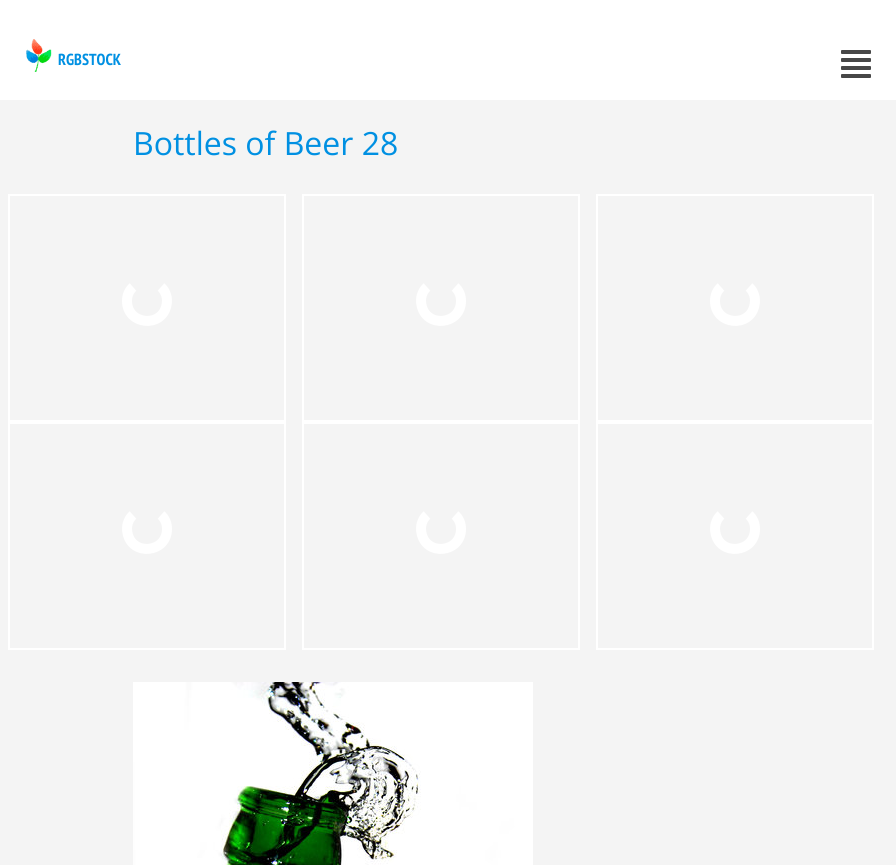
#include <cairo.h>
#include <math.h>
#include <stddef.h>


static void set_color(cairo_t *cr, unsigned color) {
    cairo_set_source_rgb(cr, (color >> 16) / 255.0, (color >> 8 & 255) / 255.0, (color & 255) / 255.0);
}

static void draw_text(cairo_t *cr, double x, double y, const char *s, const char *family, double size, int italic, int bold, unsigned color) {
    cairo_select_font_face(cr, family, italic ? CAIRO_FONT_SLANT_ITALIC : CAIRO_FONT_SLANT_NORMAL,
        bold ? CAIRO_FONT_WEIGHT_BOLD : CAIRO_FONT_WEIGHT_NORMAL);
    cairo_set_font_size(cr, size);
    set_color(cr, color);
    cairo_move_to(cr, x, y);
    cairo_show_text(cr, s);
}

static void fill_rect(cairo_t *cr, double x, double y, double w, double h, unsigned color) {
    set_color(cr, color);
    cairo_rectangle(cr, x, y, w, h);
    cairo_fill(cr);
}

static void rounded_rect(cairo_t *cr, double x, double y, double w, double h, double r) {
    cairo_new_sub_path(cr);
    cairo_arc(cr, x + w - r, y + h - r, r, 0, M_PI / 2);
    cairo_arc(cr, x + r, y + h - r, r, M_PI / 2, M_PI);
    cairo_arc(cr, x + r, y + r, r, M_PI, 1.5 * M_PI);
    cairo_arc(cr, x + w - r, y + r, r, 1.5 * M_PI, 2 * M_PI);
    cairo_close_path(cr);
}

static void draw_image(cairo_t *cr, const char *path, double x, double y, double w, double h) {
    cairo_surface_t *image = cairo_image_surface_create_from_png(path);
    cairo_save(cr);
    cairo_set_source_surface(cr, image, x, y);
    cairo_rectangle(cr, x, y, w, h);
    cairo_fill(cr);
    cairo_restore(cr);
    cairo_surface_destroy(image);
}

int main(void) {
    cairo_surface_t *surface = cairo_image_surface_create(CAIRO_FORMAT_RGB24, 896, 865);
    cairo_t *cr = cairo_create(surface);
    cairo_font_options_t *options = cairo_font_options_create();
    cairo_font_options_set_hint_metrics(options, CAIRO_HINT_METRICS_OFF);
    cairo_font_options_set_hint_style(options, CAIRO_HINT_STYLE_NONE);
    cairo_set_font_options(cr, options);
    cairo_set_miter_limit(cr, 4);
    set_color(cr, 0xF4F4F4);
    cairo_paint(cr);
    fill_rect(cr, 0, 0, 896, 100, 0xFFFFFF);
    set_color(cr, 0x474747);
    rounded_rect(cr, 841, 50, 30, 4, 1);
    cairo_fill(cr);
    rounded_rect(cr, 841, 58, 30, 4, 1);
    cairo_fill(cr);
    rounded_rect(cr, 841, 66, 30, 4, 1);
    cairo_fill(cr);
    rounded_rect(cr, 841, 74, 30, 4, 1);
    cairo_fill(cr);
    draw_image(cr, "assets/img1.png", 26, 39, 26, 33);
    draw_text(cr, 58, 65, "RGBSTOCK", "PT Sans Narrow", 16, 0, 1, 0x0090E2);
    draw_text(cr, 133, 155, "Bottles of Beer 28", "Open Sans", 32, 0, 0, 0x0090E2);
    cairo_rectangle(cr, 9, 195, 276, 226);
    set_color(cr, 0xFFFFFF);
    cairo_stroke(cr);
    cairo_new_path(cr);
    cairo_move_to(cr, 161, 287);
    cairo_curve_to(cr, 166, 291.5, 168, 298.5, 166.5, 305);
    cairo_curve_to(cr, 162, 328.5, 127, 325, 127, 301);
    cairo_curve_to(cr, 127, 295.5, 129, 290.5, 133, 287);
    cairo_set_line_width(cr, 10);
    cairo_stroke(cr);
    cairo_rectangle(cr, 303, 195, 276, 226);
    cairo_set_line_width(cr, 2);
    cairo_stroke(cr);
    cairo_new_path(cr);
    cairo_move_to(cr, 455, 287);
    cairo_curve_to(cr, 459, 290.5, 461, 295.5, 461, 301);
    cairo_curve_to(cr, 461, 325, 426, 328.5, 421.5, 305);
    cairo_curve_to(cr, 420, 298.5, 422, 291.5, 427, 287);
    cairo_set_line_width(cr, 10);
    cairo_stroke(cr);
    cairo_rectangle(cr, 597, 195, 276, 226);
    cairo_set_line_width(cr, 2);
    cairo_stroke(cr);
    cairo_new_path(cr);
    cairo_move_to(cr, 749, 287);
    cairo_curve_to(cr, 754, 291.5, 756, 298.5, 754.5, 305);
    cairo_curve_to(cr, 750, 328.5, 715, 325, 715, 301);
    cairo_curve_to(cr, 715, 295.5, 717, 290.5, 721, 287);
    cairo_set_line_width(cr, 10);
    cairo_stroke(cr);
    cairo_rectangle(cr, 9, 423, 276, 226);
    cairo_set_line_width(cr, 2);
    cairo_stroke(cr);
    cairo_new_path(cr);
    cairo_move_to(cr, 161, 515);
    cairo_curve_to(cr, 165, 518.5, 167, 523.5, 167, 529);
    cairo_curve_to(cr, 167, 553, 132, 556.5, 127.5, 533);
    cairo_curve_to(cr, 126, 526.5, 128, 519.5, 133, 515);
    cairo_set_line_width(cr, 10);
    cairo_stroke(cr);
    cairo_rectangle(cr, 303, 423, 276, 226);
    cairo_set_line_width(cr, 2);
    cairo_stroke(cr);
    cairo_new_path(cr);
    cairo_move_to(cr, 455, 515);
    cairo_curve_to(cr, 459, 518.5, 461, 523.5, 461, 529);
    cairo_curve_to(cr, 461, 553, 426, 556.5, 421.5, 533);
    cairo_curve_to(cr, 420, 526.5, 422, 519.5, 427, 515);
    cairo_set_line_width(cr, 10);
    cairo_stroke(cr);
    cairo_rectangle(cr, 597, 423, 276, 226);
    cairo_set_line_width(cr, 2);
    cairo_stroke(cr);
    cairo_new_path(cr);
    cairo_move_to(cr, 749, 515);
    cairo_curve_to(cr, 753, 518.5, 755, 523.5, 755, 529);
    cairo_curve_to(cr, 755, 553, 720, 556.5, 715.5, 533);
    cairo_curve_to(cr, 714, 526.5, 716, 519.5, 721, 515);
    cairo_set_line_width(cr, 10);
    cairo_stroke(cr);
    draw_image(cr, "assets/img2.png", 133, 682, 400, 183);
    cairo_surface_write_to_png(surface, "output.png");
    cairo_font_options_destroy(options);
    cairo_destroy(cr);
    cairo_surface_destroy(surface);
    return 0;
}
